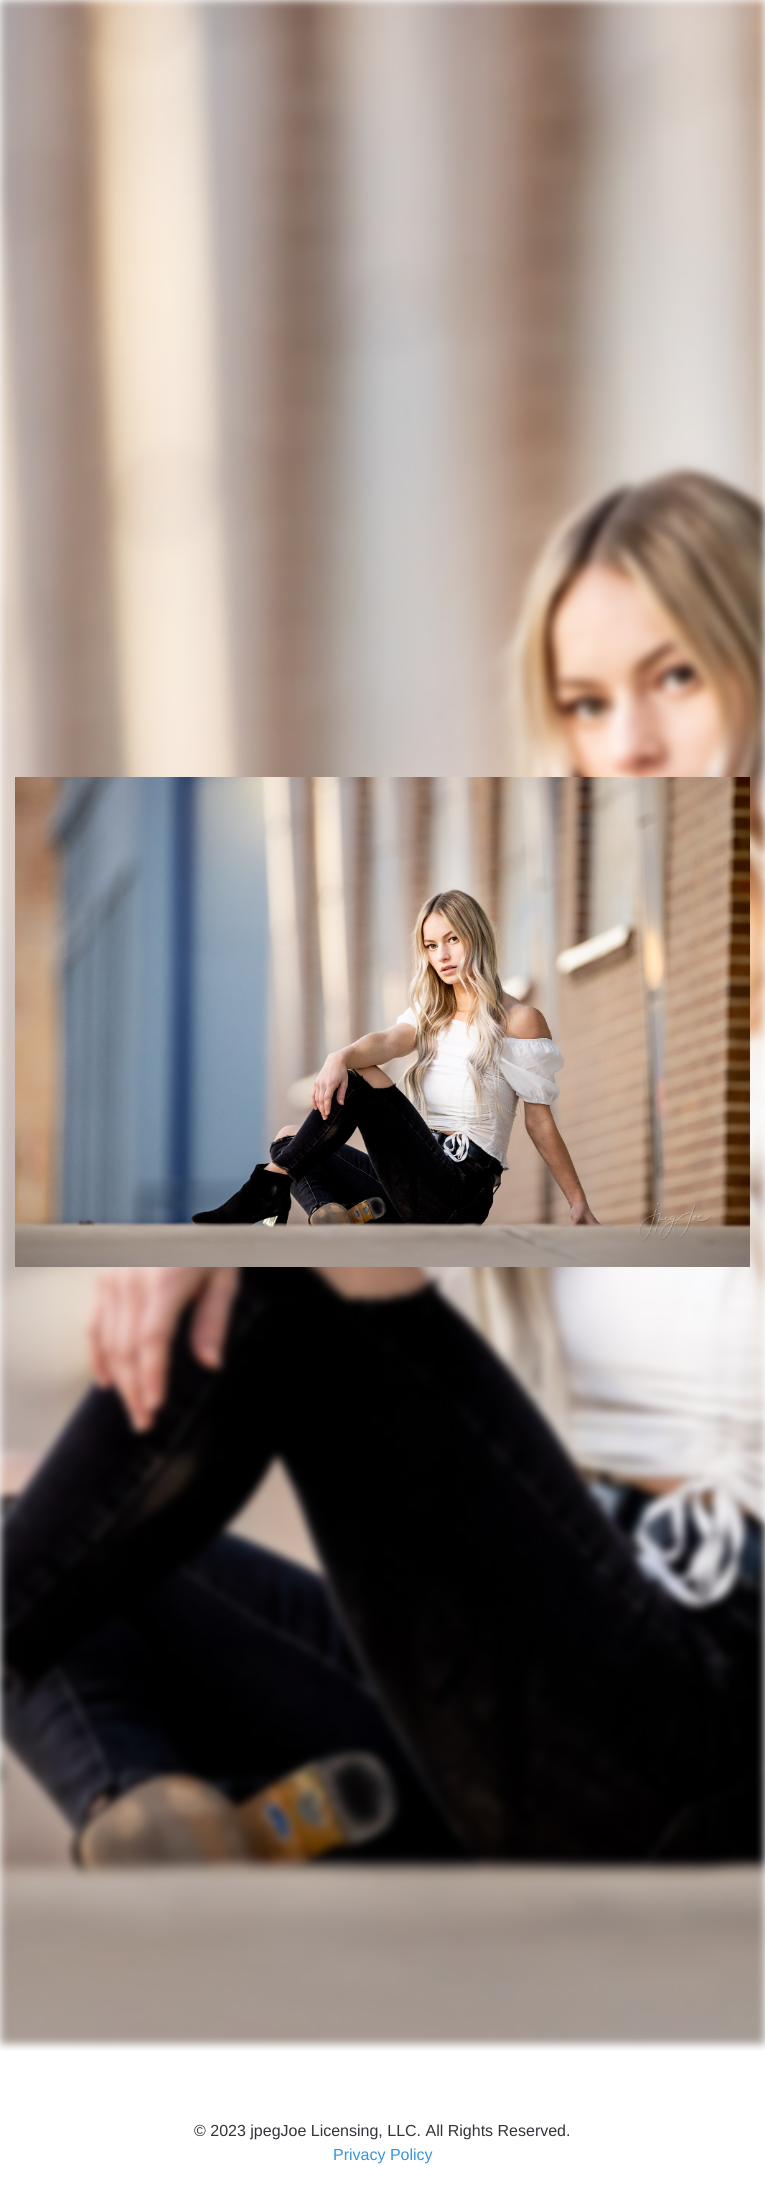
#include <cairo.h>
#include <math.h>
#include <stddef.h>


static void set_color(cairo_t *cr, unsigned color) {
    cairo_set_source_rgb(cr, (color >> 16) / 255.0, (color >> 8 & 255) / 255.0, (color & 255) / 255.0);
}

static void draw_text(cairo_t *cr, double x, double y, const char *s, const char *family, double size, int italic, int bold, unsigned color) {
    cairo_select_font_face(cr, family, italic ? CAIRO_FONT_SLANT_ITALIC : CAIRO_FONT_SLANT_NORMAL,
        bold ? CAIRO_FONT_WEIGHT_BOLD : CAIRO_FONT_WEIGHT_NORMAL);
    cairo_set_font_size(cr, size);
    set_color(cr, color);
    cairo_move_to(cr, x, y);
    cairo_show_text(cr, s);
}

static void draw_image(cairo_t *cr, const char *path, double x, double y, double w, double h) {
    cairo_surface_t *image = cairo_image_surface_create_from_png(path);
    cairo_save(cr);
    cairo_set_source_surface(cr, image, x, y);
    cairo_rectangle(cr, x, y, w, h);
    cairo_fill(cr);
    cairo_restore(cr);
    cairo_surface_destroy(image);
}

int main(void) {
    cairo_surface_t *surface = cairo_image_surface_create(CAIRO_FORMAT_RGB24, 765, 2193);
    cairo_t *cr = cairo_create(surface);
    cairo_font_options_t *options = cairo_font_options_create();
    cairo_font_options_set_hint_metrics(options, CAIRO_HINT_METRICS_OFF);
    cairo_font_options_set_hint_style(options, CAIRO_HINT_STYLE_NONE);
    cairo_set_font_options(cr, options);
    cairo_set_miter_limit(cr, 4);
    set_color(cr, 0xFFFFFF);
    cairo_paint(cr);
    draw_image(cr, "assets/img1.png", 0, 0, 765, 2051);
    draw_image(cr, "assets/img2.png", 15, 777, 735, 490);
    draw_text(cr, 194, 2136, "© 2023 jpegJoe Licensing, LLC. All Rights Reserved.", "Liberation Sans", 16, 0, 0, 0x313439);
    draw_text(cr, 333, 2160, "Privacy Policy", "Liberation Sans", 16, 0, 0, 0x3794DE);
    cairo_surface_write_to_png(surface, "output.png");
    cairo_font_options_destroy(options);
    cairo_destroy(cr);
    cairo_surface_destroy(surface);
    return 0;
}
